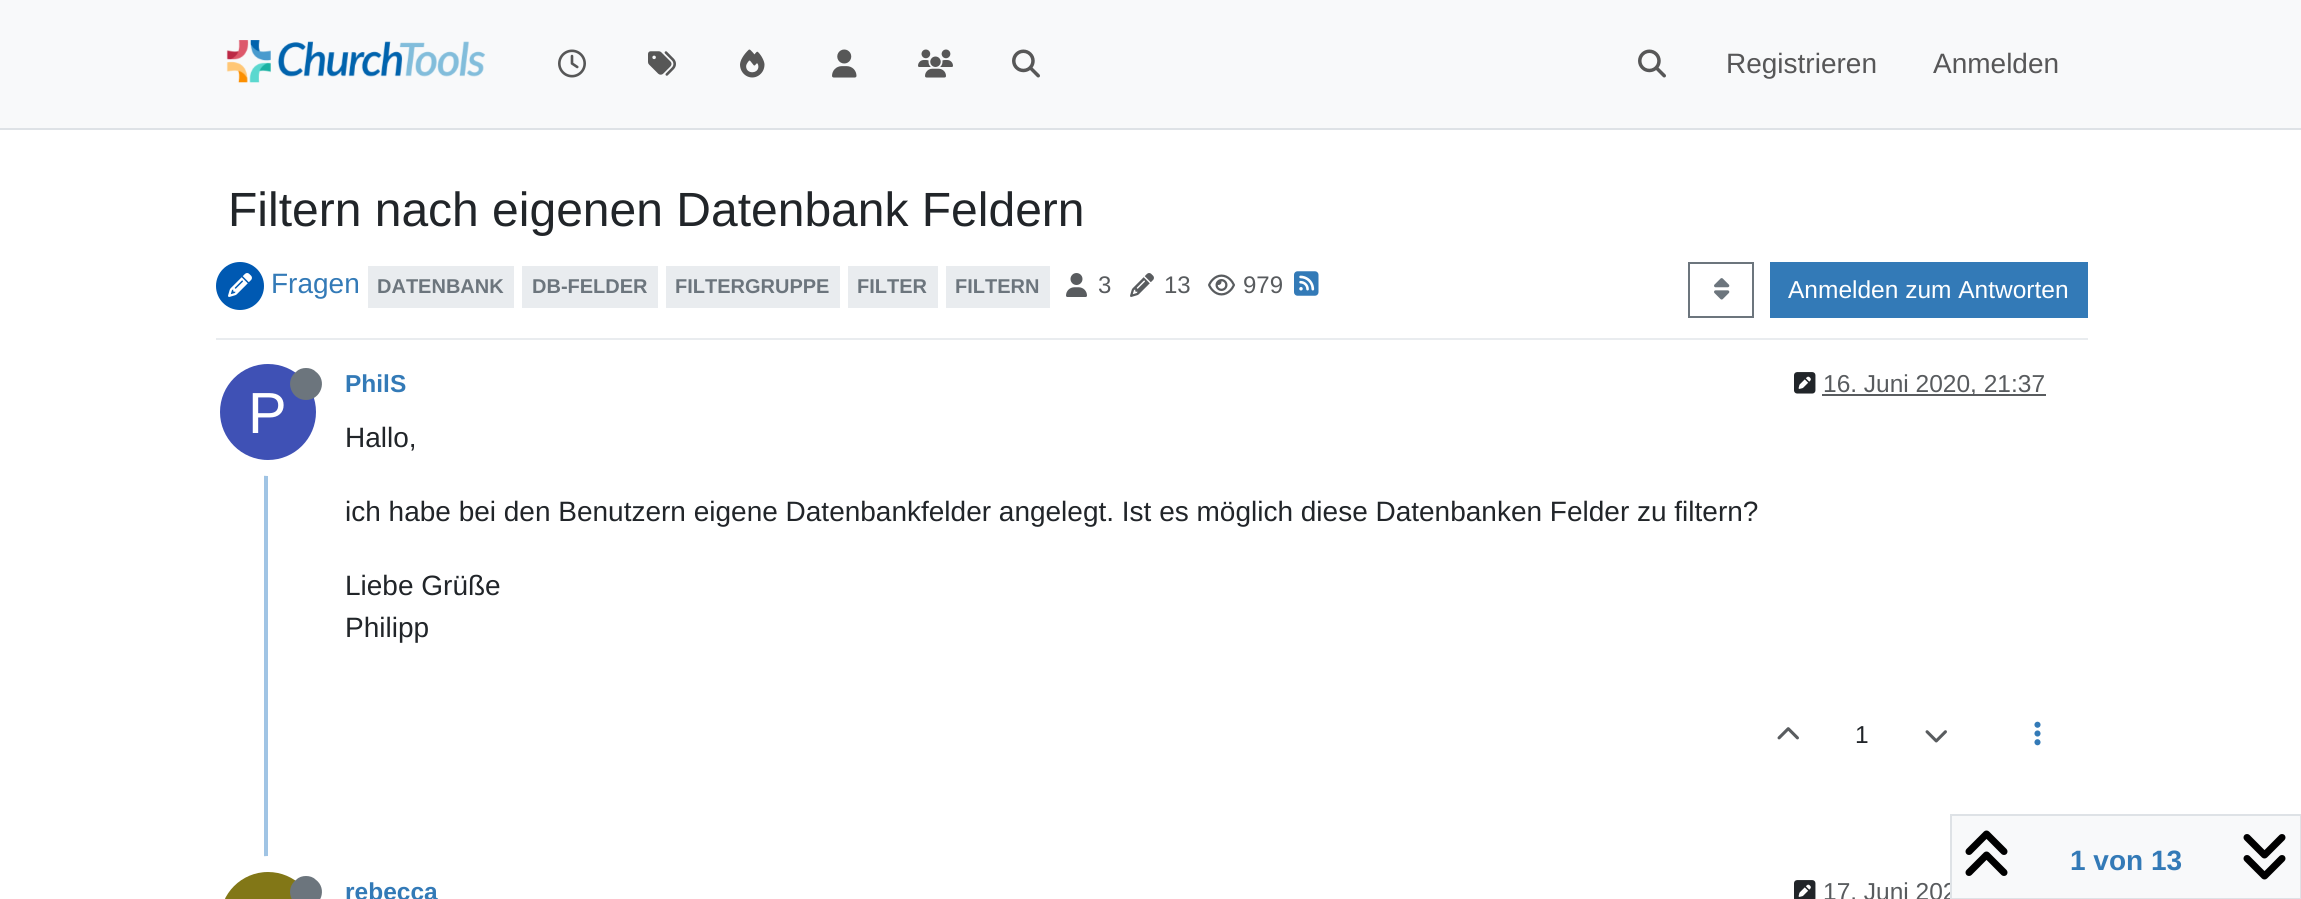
#include <cairo.h>
#include <math.h>
#include <stddef.h>


static void set_color(cairo_t *cr, unsigned color) {
    cairo_set_source_rgb(cr, (color >> 16) / 255.0, (color >> 8 & 255) / 255.0, (color & 255) / 255.0);
}

static void draw_text(cairo_t *cr, double x, double y, const char *s, const char *family, double size, int italic, int bold, unsigned color) {
    cairo_select_font_face(cr, family, italic ? CAIRO_FONT_SLANT_ITALIC : CAIRO_FONT_SLANT_NORMAL,
        bold ? CAIRO_FONT_WEIGHT_BOLD : CAIRO_FONT_WEIGHT_NORMAL);
    cairo_set_font_size(cr, size);
    set_color(cr, color);
    cairo_move_to(cr, x, y);
    cairo_show_text(cr, s);
}

static void fill_rect(cairo_t *cr, double x, double y, double w, double h, unsigned color) {
    set_color(cr, color);
    cairo_rectangle(cr, x, y, w, h);
    cairo_fill(cr);
}

static void rounded_rect(cairo_t *cr, double x, double y, double w, double h, double r) {
    cairo_new_sub_path(cr);
    cairo_arc(cr, x + w - r, y + h - r, r, 0, M_PI / 2);
    cairo_arc(cr, x + r, y + h - r, r, M_PI / 2, M_PI);
    cairo_arc(cr, x + r, y + r, r, M_PI, 1.5 * M_PI);
    cairo_arc(cr, x + w - r, y + r, r, 1.5 * M_PI, 2 * M_PI);
    cairo_close_path(cr);
}

static void draw_image(cairo_t *cr, const char *path, double x, double y, double w, double h) {
    cairo_surface_t *image = cairo_image_surface_create_from_png(path);
    cairo_save(cr);
    cairo_set_source_surface(cr, image, x, y);
    cairo_rectangle(cr, x, y, w, h);
    cairo_fill(cr);
    cairo_restore(cr);
    cairo_surface_destroy(image);
}

int main(void) {
    cairo_surface_t *surface = cairo_image_surface_create(CAIRO_FORMAT_RGB24, 2301, 899);
    cairo_t *cr = cairo_create(surface);
    cairo_font_options_t *options = cairo_font_options_create();
    cairo_font_options_set_hint_metrics(options, CAIRO_HINT_METRICS_OFF);
    cairo_font_options_set_hint_style(options, CAIRO_HINT_STYLE_NONE);
    cairo_set_font_options(cr, options);
    cairo_set_miter_limit(cr, 4);
    set_color(cr, 0xFFFFFF);
    cairo_paint(cr);
    fill_rect(cr, 0, 0, 2301, 128, 0xF8F9FA);
    fill_rect(cr, 0, 128, 2301, 2, 0xDEE2E6);
    draw_image(cr, "assets/img1.png", 226, 40, 260, 43);
    draw_image(cr, "assets/img2.png", 558, 49, 28, 29);
    draw_image(cr, "assets/img3.png", 648, 51, 28, 25);
    draw_image(cr, "assets/img4.png", 740, 49, 25, 29);
    draw_image(cr, "assets/img5.png", 832, 49, 25, 29);
    draw_image(cr, "assets/img6.png", 918, 49, 35, 29);
    draw_image(cr, "assets/img7.png", 1012, 49, 28, 29);
    draw_image(cr, "assets/img7.png", 1638, 49, 28, 29);
    draw_text(cr, 1726, 73, "Registrieren", "Liberation Sans", 28, 0, 0, 0x575758);
    draw_text(cr, 1933, 73, "Anmelden", "Liberation Sans", 28, 0, 0, 0x575758);
    draw_text(cr, 228, 226, "Filtern nach eigenen Datenbank Feldern", "Liberation Sans", 48, 0, 0, 0x212529);
    fill_rect(cr, 216, 338, 1872, 2, 0xE9ECEF);
    set_color(cr, 0x0059B2);
    cairo_new_path(cr);
    cairo_arc(cr, 240, 286, 24, 0, 2 * M_PI);
    cairo_fill(cr);
    draw_image(cr, "assets/img8.png", 228, 273, 24, 24);
    draw_text(cr, 271, 293, "Fragen", "Liberation Sans", 28, 0, 0, 0x337AB7);
    fill_rect(cr, 368, 266, 146, 42, 0xE9ECEF);
    draw_text(cr, 377, 293, "DATENBANK", "Liberation Sans", 20, 0, 1, 0x6C757D);
    fill_rect(cr, 522, 266, 136, 42, 0xE9ECEF);
    draw_text(cr, 532, 293, "DB-FELDER", "Liberation Sans", 20, 0, 1, 0x6C757D);
    fill_rect(cr, 666, 266, 174, 42, 0xE9ECEF);
    draw_text(cr, 675, 293, "FILTERGRUPPE", "Liberation Sans", 20, 0, 1, 0x6C757D);
    fill_rect(cr, 848, 266, 90, 42, 0xE9ECEF);
    draw_text(cr, 857, 293, "FILTER", "Liberation Sans", 20, 0, 1, 0x6C757D);
    fill_rect(cr, 946, 266, 104, 42, 0xE9ECEF);
    draw_text(cr, 955, 293, "FILTERN", "Liberation Sans", 20, 0, 1, 0x6C757D);
    draw_image(cr, "assets/img9.png", 1066, 273, 21, 24);
    draw_text(cr, 1098, 293, "3", "Liberation Sans", 24, 0, 0, 0x585B5E);
    draw_image(cr, "assets/img10.png", 1130, 273, 24, 24);
    draw_text(cr, 1164, 293, "13", "Liberation Sans", 24, 0, 0, 0x585B5E);
    draw_image(cr, "assets/img11.png", 1208, 274, 27, 22);
    draw_text(cr, 1243, 293, "979", "Liberation Sans", 24, 0, 0, 0x585B5E);
    draw_image(cr, "assets/img12.png", 1294, 271, 25, 25);
    cairo_rectangle(cr, 1689, 263, 64, 54);
    set_color(cr, 0x6C757D);
    cairo_stroke(cr);
    draw_image(cr, "assets/img13.png", 1714, 278, 16, 22);
    fill_rect(cr, 1770, 262, 318, 56, 0x337AB7);
    draw_text(cr, 1788, 298, "Anmelden zum Antworten", "Liberation Sans", 24.5, 0, 0, 0xFFFFFF);
    fill_rect(cr, 264, 360, 4, 513, 0xA0C4E4);
    draw_text(cr, 345, 392, "PhilS", "Liberation Sans", 24.5, 0, 1, 0x337AB7);
    draw_image(cr, "assets/img14.png", 1794, 372, 22, 22);
    fill_rect(cr, 1822, 394, 224, 2, 0x595C5F);
    draw_text(cr, 1823, 392, "16. Juni 2020, 21:37", "Liberation Sans", 24.5, 0, 0, 0x585B5E);
    cairo_new_path(cr);
    cairo_arc(cr, 268, 412, 56, 0, 2 * M_PI);
    set_color(cr, 0xFFFFFF);
    cairo_set_line_width(cr, 16);
    cairo_stroke(cr);
    set_color(cr, 0x3F51B5);
    cairo_arc(cr, 268, 412, 48, 0, 2 * M_PI);
    cairo_fill(cr);
    set_color(cr, 0x6C757D);
    cairo_new_path(cr);
    cairo_move_to(cr, 306, 400);
    cairo_curve_to(cr, 321, 400, 328, 380.5, 315.5, 371.5);
    cairo_curve_to(cr, 313, 369, 309.5, 368, 306, 368);
    cairo_curve_to(cr, 302.5, 368, 299, 369, 296.5, 371.5);
    cairo_curve_to(cr, 284, 380.5, 291, 400, 306, 400);
    cairo_close_path(cr);
    cairo_fill(cr);
    draw_text(cr, 248, 433, "P", "Liberation Sans", 58, 0, 0, 0xFFFFFF);
    draw_text(cr, 345, 447, "Hallo,", "Liberation Sans", 28, 0, 0, 0x212529);
    draw_text(cr, 345, 521, "ich habe bei den Benutzern eigene Datenbankfelder angelegt. Ist es möglich diese Datenbanken Felder zu filtern?", "Liberation Sans", 28, 0, 0, 0x212529);
    draw_text(cr, 345, 595, "Liebe Grüße", "Liberation Sans", 28, 0, 0, 0x212529);
    draw_text(cr, 345, 637, "Philipp", "Liberation Sans", 28, 0, 0, 0x212529);
    draw_image(cr, "assets/img15.png", 1777, 727, 22, 13);
    draw_text(cr, 1855, 743, "1", "Liberation Sans", 24.5, 0, 0, 0x212529);
    draw_image(cr, "assets/img16.png", 1925, 730, 22, 13);
    draw_image(cr, "assets/img17.png", 2034, 721, 7, 25);
    rounded_rect(cr, 212, 864, 112, 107, 56);
    set_color(cr, 0xFFFFFF);
    cairo_stroke(cr);
    set_color(cr, 0x827717);
    rounded_rect(cr, 220, 872, 96, 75, 48);
    cairo_fill(cr);
    set_color(cr, 0x6C757D);
    cairo_new_path(cr);
    cairo_move_to(cr, 306, 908);
    cairo_curve_to(cr, 321, 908, 328, 888.5, 315.5, 879.5);
    cairo_curve_to(cr, 313, 877, 309.5, 876, 306, 876);
    cairo_curve_to(cr, 302.5, 876, 299, 877, 296.5, 879.5);
    cairo_curve_to(cr, 284, 888.5, 291, 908, 306, 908);
    cairo_close_path(cr);
    cairo_fill(cr);
    draw_text(cr, 345, 900, "rebecca", "Liberation Sans", 24.5, 0, 1, 0x337AB7);
    draw_image(cr, "assets/img18.png", 1794, 880, 22, 19);
    draw_text(cr, 1823, 900, "17. Juni 202", "Liberation Sans", 24.5, 0, 0, 0x585B5E);
    set_color(cr, 0xF8F9FA);
    cairo_rectangle(cr, 1951, 815, 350, 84);
    cairo_fill_preserve(cr);
    set_color(cr, 0xDEE2E6);
    cairo_set_line_width(cr, 2);
    cairo_stroke(cr);
    draw_image(cr, "assets/img19.png", 1965, 830, 43, 46);
    draw_text(cr, 2070, 870, "1 von 13", "Liberation Sans", 28, 0, 1, 0x337AB7);
    draw_image(cr, "assets/img20.png", 2243, 834, 43, 46);
    cairo_surface_write_to_png(surface, "output.png");
    cairo_font_options_destroy(options);
    cairo_destroy(cr);
    cairo_surface_destroy(surface);
    return 0;
}
